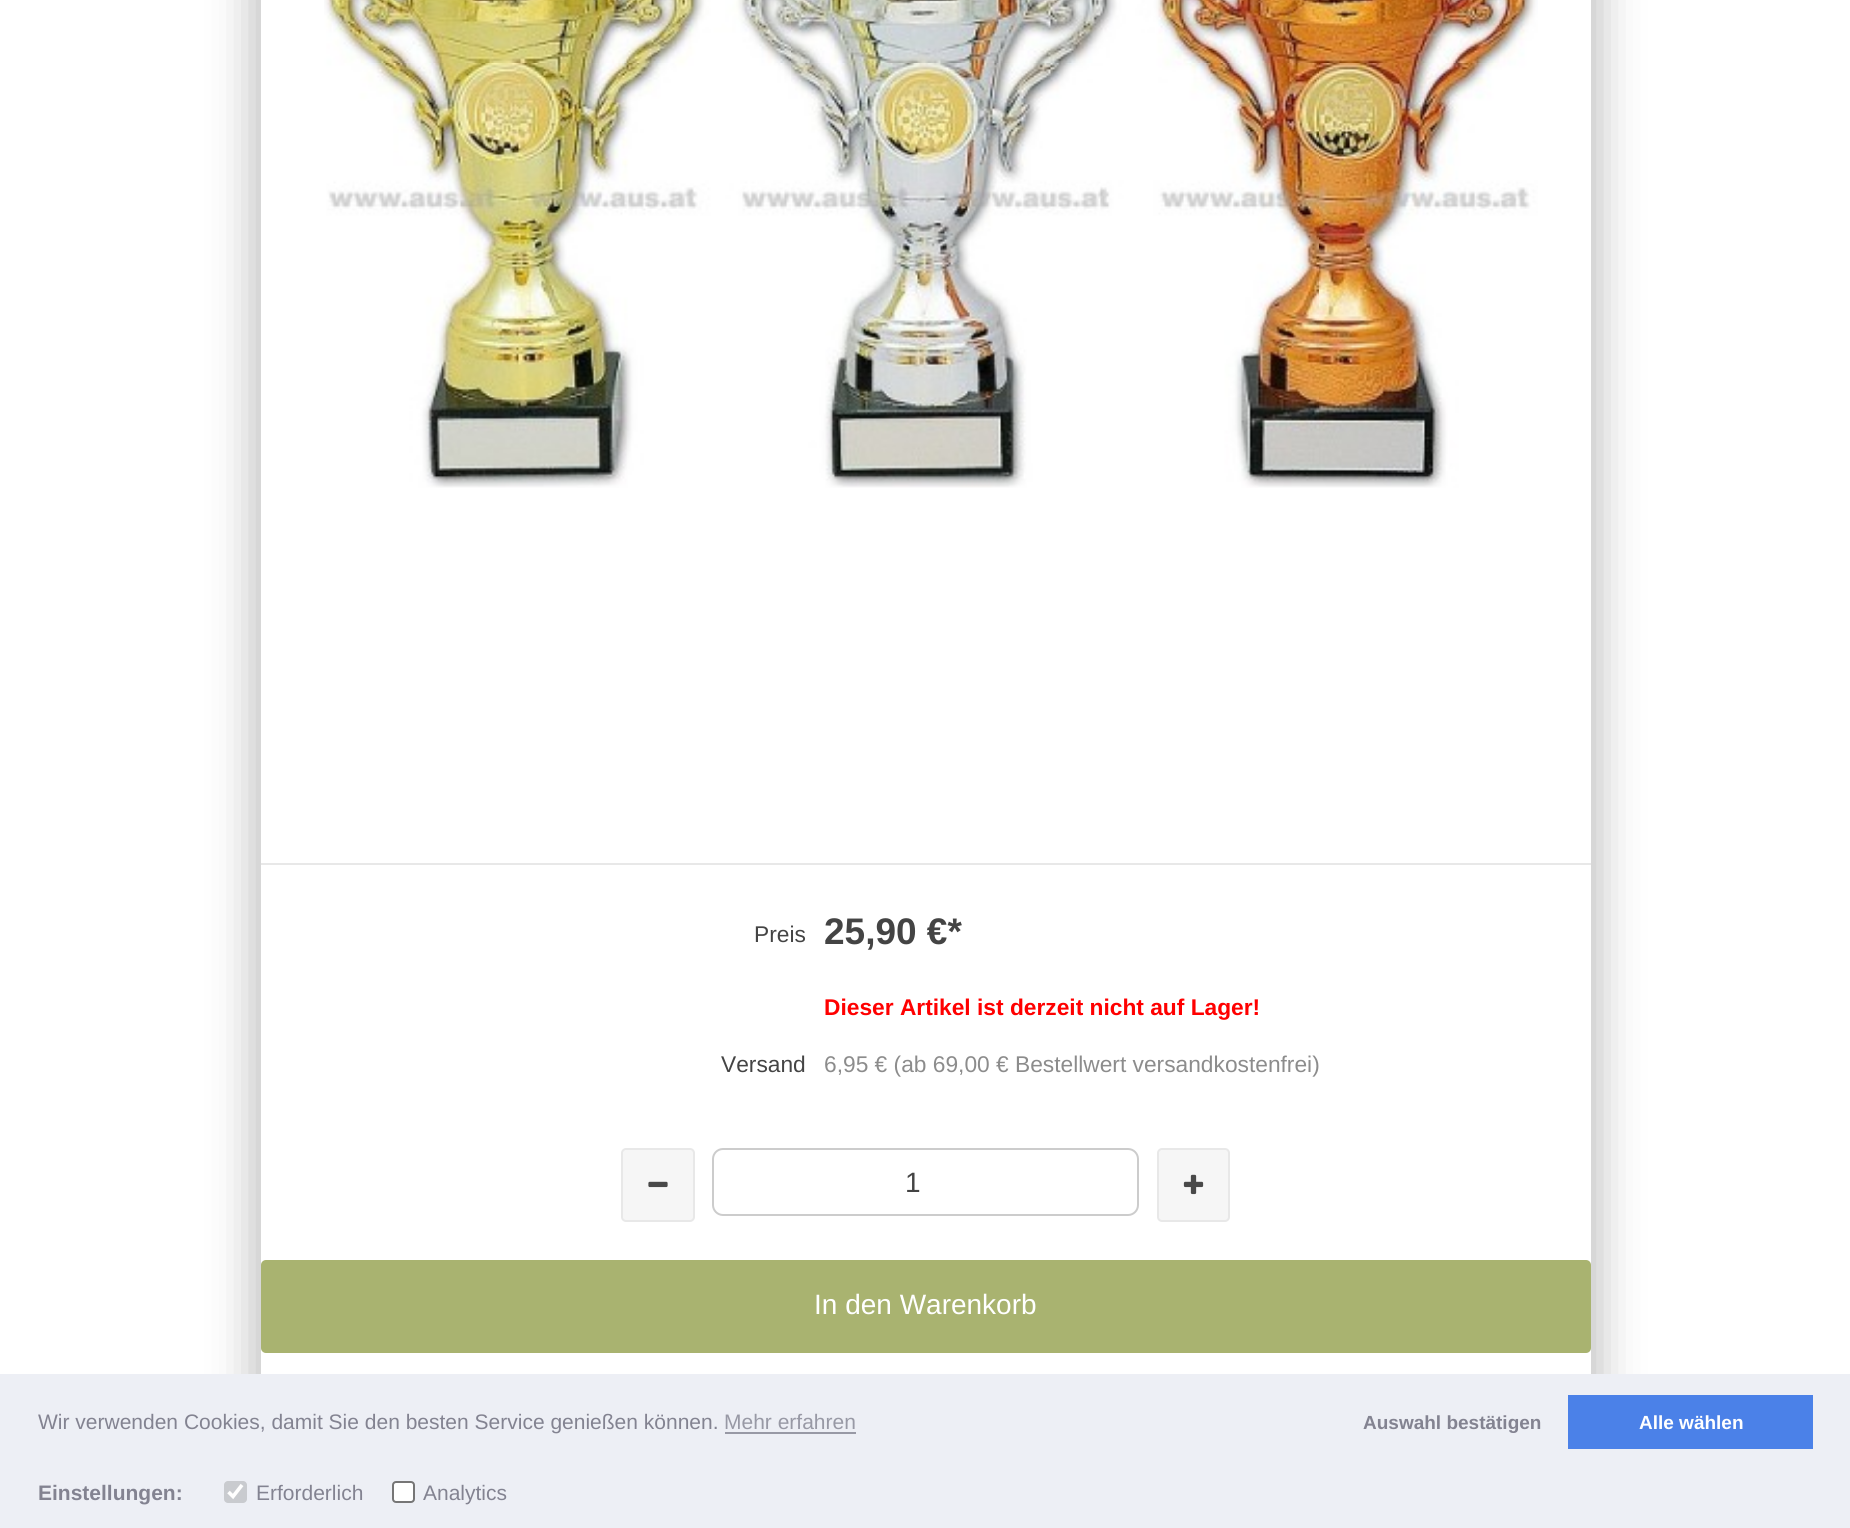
#include <cairo.h>
#include <math.h>
#include <stddef.h>


static void set_color(cairo_t *cr, unsigned color) {
    cairo_set_source_rgb(cr, (color >> 16) / 255.0, (color >> 8 & 255) / 255.0, (color & 255) / 255.0);
}

static void draw_text(cairo_t *cr, double x, double y, const char *s, const char *family, double size, int italic, int bold, unsigned color) {
    cairo_select_font_face(cr, family, italic ? CAIRO_FONT_SLANT_ITALIC : CAIRO_FONT_SLANT_NORMAL,
        bold ? CAIRO_FONT_WEIGHT_BOLD : CAIRO_FONT_WEIGHT_NORMAL);
    cairo_set_font_size(cr, size);
    set_color(cr, color);
    cairo_move_to(cr, x, y);
    cairo_show_text(cr, s);
}

static void fill_rect(cairo_t *cr, double x, double y, double w, double h, unsigned color) {
    set_color(cr, color);
    cairo_rectangle(cr, x, y, w, h);
    cairo_fill(cr);
}

static void rounded_rect(cairo_t *cr, double x, double y, double w, double h, double r) {
    cairo_new_sub_path(cr);
    cairo_arc(cr, x + w - r, y + h - r, r, 0, M_PI / 2);
    cairo_arc(cr, x + r, y + h - r, r, M_PI / 2, M_PI);
    cairo_arc(cr, x + r, y + r, r, M_PI, 1.5 * M_PI);
    cairo_arc(cr, x + w - r, y + r, r, 1.5 * M_PI, 2 * M_PI);
    cairo_close_path(cr);
}

static void draw_shadow(cairo_t *cr, double x, double y, double w, double h, double r, double blur, double alpha) {
    cairo_push_group_with_content(cr, CAIRO_CONTENT_ALPHA);
    cairo_set_operator(cr, CAIRO_OPERATOR_SOURCE);
    for (int i = 15; i >= -15 && fmin(w, h) + blur * i / 3 > 0; i -= 2) {
        double e = blur * i / 6;
        cairo_set_source_rgba(cr, 0, 0, 0, alpha * erfc((i - 1) / 8.5) / 2);
        rounded_rect(cr, x - e, y - e, w + 2 * e, h + 2 * e, fmax(0, fmin(r + e + blur * .6, fmin(w, h) / 2 + e)));
        cairo_fill(cr);
    }
    cairo_pattern_t *soft = cairo_pop_group(cr);
    cairo_mask(cr, soft);
    cairo_pattern_destroy(soft);
}

static void draw_image(cairo_t *cr, const char *path, double x, double y, double w, double h) {
    cairo_surface_t *image = cairo_image_surface_create_from_png(path);
    cairo_save(cr);
    cairo_set_source_surface(cr, image, x, y);
    cairo_rectangle(cr, x, y, w, h);
    cairo_fill(cr);
    cairo_restore(cr);
    cairo_surface_destroy(image);
}

int main(void) {
    cairo_surface_t *surface = cairo_image_surface_create(CAIRO_FORMAT_RGB24, 1850, 1528);
    cairo_t *cr = cairo_create(surface);
    cairo_font_options_t *options = cairo_font_options_create();
    cairo_font_options_set_hint_metrics(options, CAIRO_HINT_METRICS_OFF);
    cairo_font_options_set_hint_style(options, CAIRO_HINT_STYLE_NONE);
    cairo_set_font_options(cr, options);
    cairo_set_miter_limit(cr, 4);
    set_color(cr, 0xFFFFFF);
    cairo_paint(cr);
    cairo_save(cr);
    cairo_set_fill_rule(cr, CAIRO_FILL_RULE_EVEN_ODD);
    cairo_new_path(cr);
    cairo_move_to(cr, 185, 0);
    cairo_line_to(cr, 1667, 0);
    cairo_line_to(cr, 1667, 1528);
    cairo_line_to(cr, 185, 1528);
    cairo_close_path(cr);
    cairo_move_to(cr, 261, -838);
    cairo_line_to(cr, 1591, -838);
    cairo_line_to(cr, 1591, 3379);
    cairo_line_to(cr, 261, 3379);
    cairo_close_path(cr);
    cairo_clip(cr);
    set_color(cr, 0x000000);
    draw_shadow(cr, 252, -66, 1348, 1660, 0, 22, 0.25);
    cairo_restore(cr);
    fill_rect(cr, 1590, 0, 1, 863, 0xFFFFFF);
    fill_rect(cr, 261, 863, 1330, 2, 0xE8E8E8);
    draw_image(cr, "assets/img1.png", 324, 0, 1214, 488);
    fill_rect(cr, 1590, 891, 1, 2, 0xFFFFFF);
    fill_rect(cr, 1590, 978, 1, 2, 0xFFFFFF);
    draw_text(cr, 754, 942, "Preis", "Liberation Sans", 22.75, 0, 0, 0x444444);
    draw_text(cr, 824, 944, "25,90 €*", "Liberation Sans", 37, 0, 1, 0x444444);
    draw_text(cr, 824, 1015, "Dieser Artikel ist derzeit nicht auf Lager!", "Liberation Sans", 22.75, 0, 1, 0xFF0000);
    draw_text(cr, 721, 1072, "Versand", "Liberation Sans", 22.75, 0, 0, 0x444444);
    draw_text(cr, 824, 1072, "6,95 € (ab 69,00 € Bestellwert versandkostenfrei)", "Liberation Sans", 22.75, 0, 0, 0x8C8C8C);
    set_color(cr, 0xF6F6F6);
    rounded_rect(cr, 622, 1149, 72, 72, 4);
    cairo_fill_preserve(cr);
    set_color(cr, 0xE8E8E8);
    cairo_stroke(cr);
    draw_image(cr, "assets/img2.png", 648, 1181, 20, 7);
    rounded_rect(cr, 713, 1149, 425, 66, 10);
    set_color(cr, 0xCCCCCC);
    cairo_stroke(cr);
    draw_text(cr, 905, 1192, "1", "Liberation Sans", 28, 0, 0, 0x444444);
    set_color(cr, 0xF6F6F6);
    rounded_rect(cr, 1158, 1149, 71, 72, 4);
    cairo_fill_preserve(cr);
    set_color(cr, 0xE8E8E8);
    cairo_stroke(cr);
    draw_image(cr, "assets/img3.png", 1183, 1174, 21, 21);
    cairo_set_source_rgba(cr, 0.486, 0.545, 0.141, 0.65);
    rounded_rect(cr, 261, 1260, 1330, 93, 5);
    cairo_fill(cr);
    draw_text(cr, 814, 1314, "In den Warenkorb", "Liberation Sans", 28, 0, 0, 0xFFFFFF);
    fill_rect(cr, 0, 1374, 1850, 154, 0xEDEFF5);
    draw_text(cr, 38, 1429, "Wir verwenden Cookies, damit Sie den besten Service genießen können.", "Liberation Sans", 21, 0, 0, 0x838391);
    draw_text(cr, 724, 1429, "Mehr erfahren", "Liberation Sans", 21, 0, 0, 0x9899A5);
    fill_rect(cr, 725, 1432, 131, 2, 0x9899A5);
    draw_text(cr, 1363, 1429, "Auswahl bestätigen", "Liberation Sans", 19, 0, 1, 0x838391);
    fill_rect(cr, 1568, 1395, 245, 54, 0x4B81E8);
    draw_text(cr, 1639, 1429, "Alle wählen", "Liberation Sans", 19, 0, 1, 0xFFFFFF);
    draw_text(cr, 38, 1500, "Einstellungen:", "Liberation Sans", 21, 0, 1, 0x838391);
    set_color(cr, 0xC9CBCF);
    rounded_rect(cr, 224, 1481, 23, 22, 4);
    cairo_fill(cr);
    cairo_new_path(cr);
    cairo_move_to(cr, 228.5, 1492);
    cairo_line_to(cr, 233, 1496.5);
    cairo_line_to(cr, 242, 1485);
    set_color(cr, 0xFFFFFF);
    cairo_set_line_width(cr, 3.6);
    cairo_stroke(cr);
    draw_text(cr, 256, 1500, "Erforderlich", "Liberation Sans", 21, 0, 0, 0x838391);
    set_color(cr, 0xFFFFFF);
    rounded_rect(cr, 393, 1482, 21, 20, 3);
    cairo_fill_preserve(cr);
    set_color(cr, 0x767676);
    cairo_set_line_width(cr, 2);
    cairo_stroke(cr);
    draw_text(cr, 423, 1500, "Analytics", "Liberation Sans", 21, 0, 0, 0x838391);
    cairo_surface_write_to_png(surface, "output.png");
    cairo_font_options_destroy(options);
    cairo_destroy(cr);
    cairo_surface_destroy(surface);
    return 0;
}
